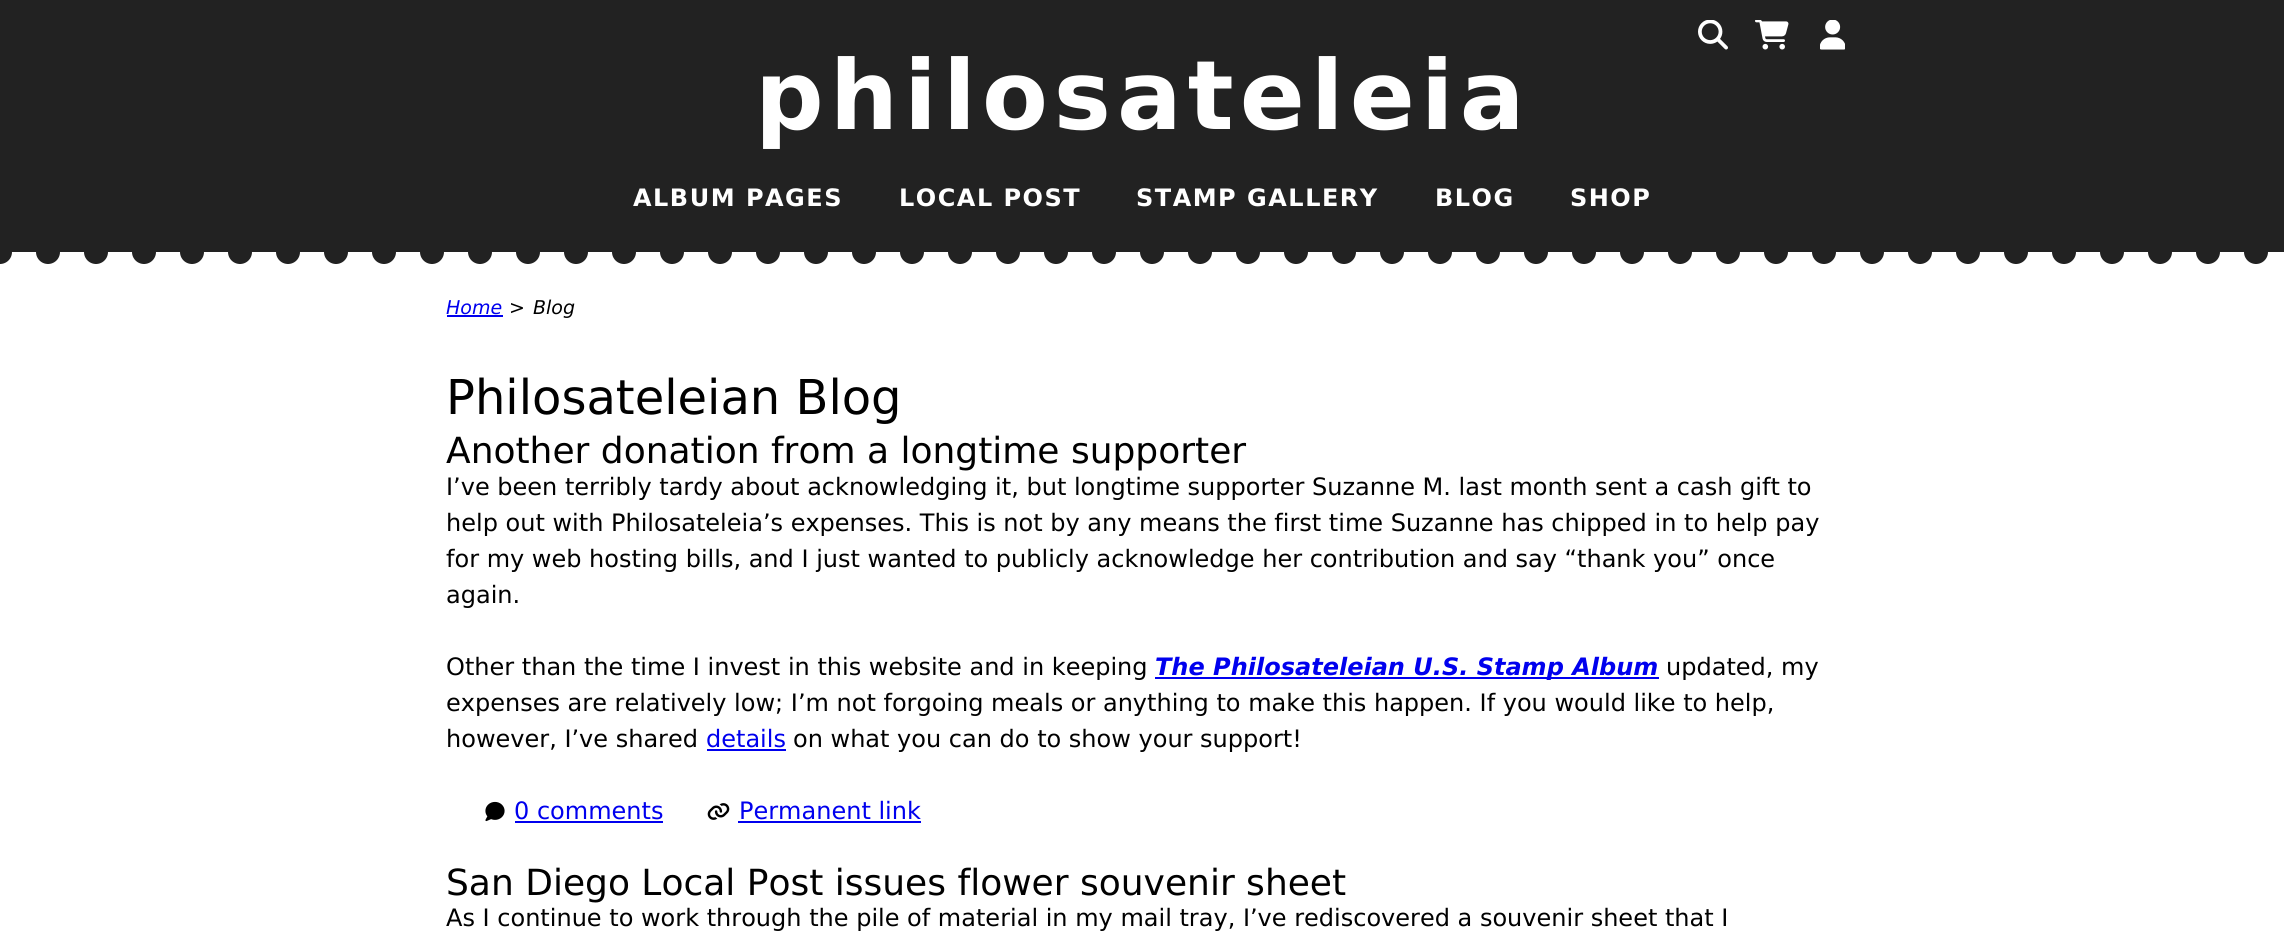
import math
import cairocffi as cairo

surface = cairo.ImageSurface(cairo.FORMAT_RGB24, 2284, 947)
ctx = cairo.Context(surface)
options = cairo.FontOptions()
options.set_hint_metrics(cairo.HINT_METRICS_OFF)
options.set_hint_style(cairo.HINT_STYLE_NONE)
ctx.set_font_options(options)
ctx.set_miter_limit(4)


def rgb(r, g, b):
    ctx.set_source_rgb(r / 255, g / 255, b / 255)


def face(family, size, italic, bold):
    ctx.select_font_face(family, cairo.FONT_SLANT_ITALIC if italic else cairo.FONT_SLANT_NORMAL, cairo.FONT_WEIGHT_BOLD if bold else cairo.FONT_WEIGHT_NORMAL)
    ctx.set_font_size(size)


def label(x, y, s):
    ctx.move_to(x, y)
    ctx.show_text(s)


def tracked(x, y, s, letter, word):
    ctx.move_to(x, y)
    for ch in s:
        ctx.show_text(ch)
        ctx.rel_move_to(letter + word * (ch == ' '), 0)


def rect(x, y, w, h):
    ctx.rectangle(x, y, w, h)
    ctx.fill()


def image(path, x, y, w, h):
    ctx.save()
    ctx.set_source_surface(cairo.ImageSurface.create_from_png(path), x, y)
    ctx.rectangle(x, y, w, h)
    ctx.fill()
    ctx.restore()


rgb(255, 255, 255)
ctx.paint()
ctx.new_path()
ctx.move_to(0, 252)
ctx.line_to(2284.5, 252)
rgb(34, 34, 34)
ctx.set_line_width(24)
ctx.set_line_cap(cairo.LINE_CAP_ROUND)
ctx.set_dash([0, 48])
ctx.stroke()
rect(0, 0, 2284, 252)
image('image0.png', 1698, 20, 30, 30)
image('image1.png', 1755, 20, 34, 30)
image('image2.png', 1820, 20, 25, 30)
face('DejaVu Sans', 96, 0, 1)
rgb(255, 255, 255)
tracked(755, 129, 'philosateleia', 6, 0)
face('DejaVu Sans', 24, 0, 1)
tracked(633, 206, 'ALBUM PAGES', 1.5, 0)
tracked(899, 206, 'LOCAL POST', 1.5, 0)
tracked(1136, 206, 'STAMP GALLERY', 1.5, 0)
tracked(1435, 206, 'BLOG', 1.5, 0)
tracked(1570, 206, 'SHOP', 1.5, 0)
face('DejaVu Sans', 19, 1, 0)
rgb(0, 0, 238)
label(446, 314, 'Home')
rect(447, 315, 56, 2)
rgb(0, 0, 0)
label(509, 314, '>')
label(533, 314, 'Blog')
face('DejaVu Sans', 48, 0, 0)
label(446, 414, 'Philosateleian Blog')
face('DejaVu Sans', 36, 0, 0)
label(446, 463, 'Another donation from a longtime supporter')
face('DejaVu Sans', 24, 0, 0)
label(446, 495, 'I’ve been terribly tardy about acknowledging it, but longtime supporter Suzanne M. last month sent a cash gift to')
label(446, 531, 'help out with Philosateleia’s expenses. This is not by any means the first time Suzanne has chipped in to help pay')
label(446, 567, 'for my web hosting bills, and I just wanted to publicly acknowledge her contribution and say “thank you” once')
label(446, 603, 'again.')
label(446, 675, 'Other than the time I invest in this website and in keeping')
rgb(0, 0, 238)
rect(1155, 677, 504, 2)
face('DejaVu Sans', 24, 1, 1)
label(1155, 675, 'The Philosateleian U.S. Stamp Album')
face('DejaVu Sans', 24, 0, 0)
rgb(0, 0, 0)
label(1666, 675, 'updated, my')
label(446, 711, 'expenses are relatively low; I’m not forgoing meals or anything to make this happen. If you would like to help,')
label(446, 747, 'however, I’ve shared')
rgb(0, 0, 238)
label(706, 747, 'details')
rect(707, 749, 79, 2)
rgb(0, 0, 0)
label(793, 747, 'on what you can do to show your support!')
image('image3.png', 485, 801, 20, 21)
rgb(0, 0, 238)
label(514, 819, '0 comments')
rect(515, 821, 148, 2)
image('image4.png', 707, 803, 23, 17)
label(739, 819, 'Permanent link')
rect(738, 821, 183, 2)
face('DejaVu Sans', 36, 0, 0)
rgb(0, 0, 0)
label(446, 895, 'San Diego Local Post issues flower souvenir sheet')
face('DejaVu Sans', 24, 0, 0)
label(446, 926, 'As I continue to work through the pile of material in my mail tray, I’ve rediscovered a souvenir sheet that I')
surface.write_to_png('render.png')
